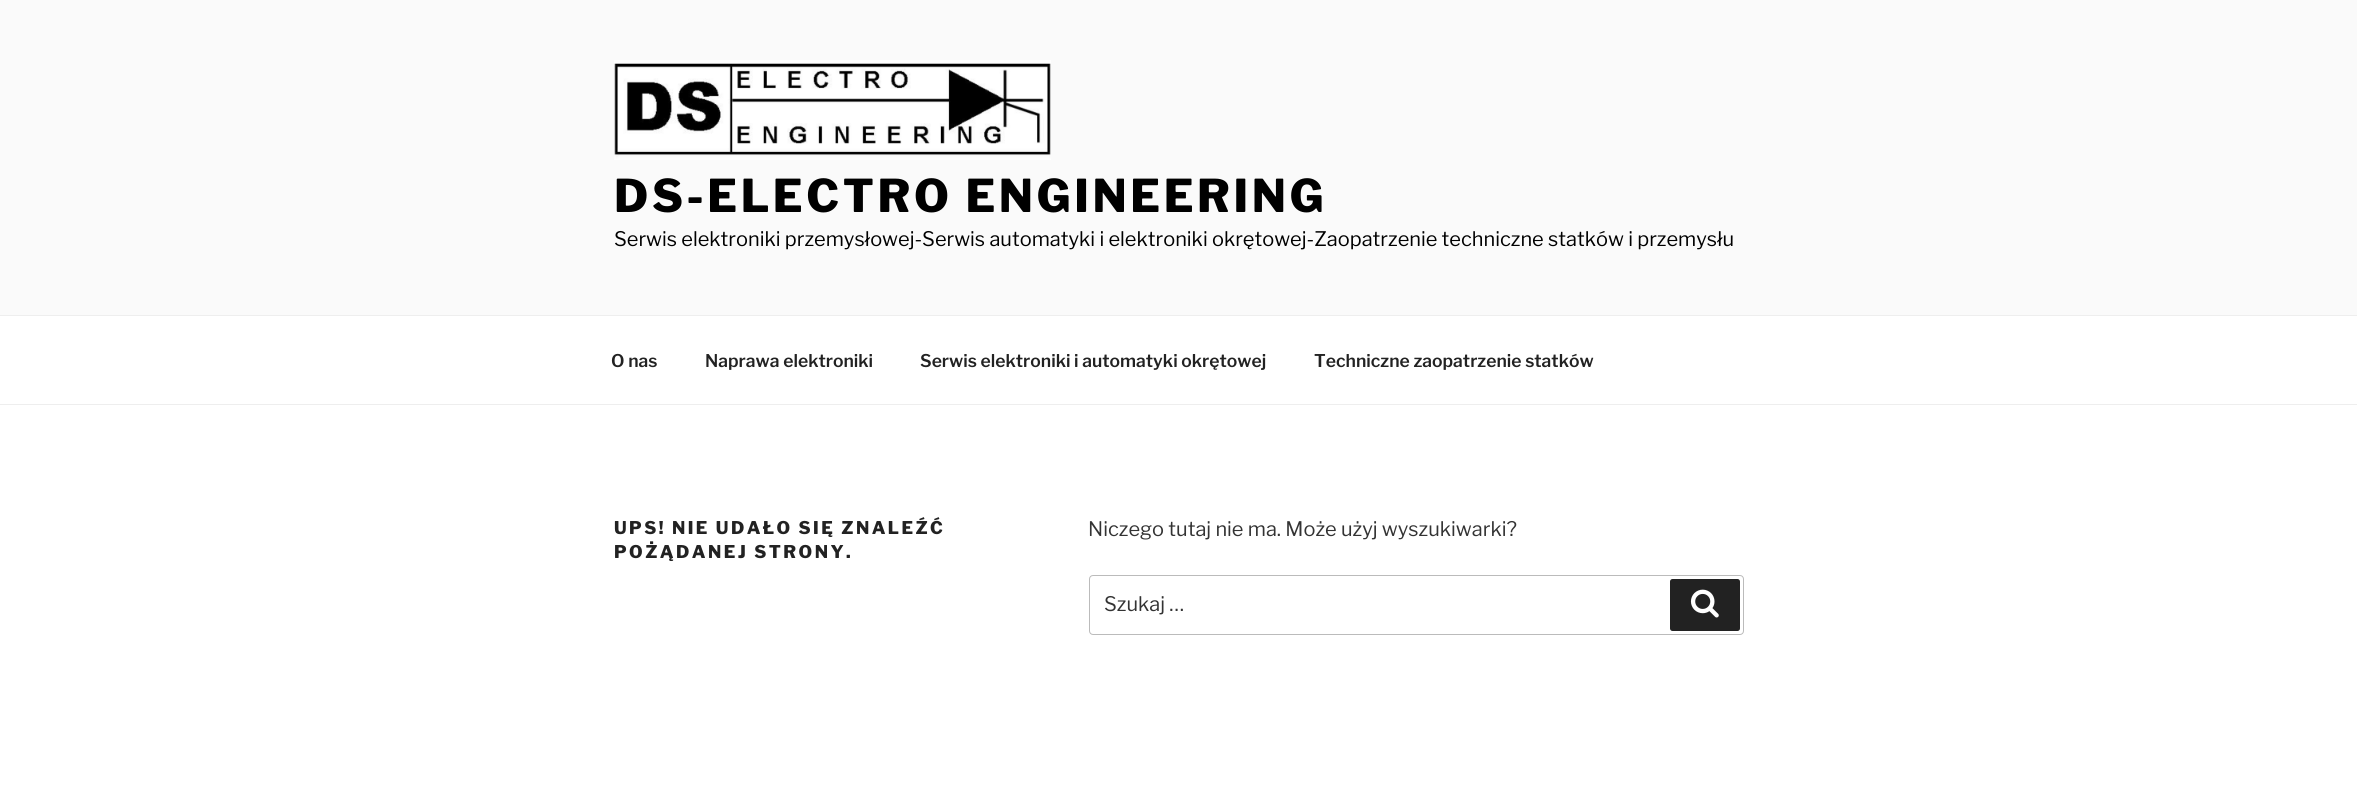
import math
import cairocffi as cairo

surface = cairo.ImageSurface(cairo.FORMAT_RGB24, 2357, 794)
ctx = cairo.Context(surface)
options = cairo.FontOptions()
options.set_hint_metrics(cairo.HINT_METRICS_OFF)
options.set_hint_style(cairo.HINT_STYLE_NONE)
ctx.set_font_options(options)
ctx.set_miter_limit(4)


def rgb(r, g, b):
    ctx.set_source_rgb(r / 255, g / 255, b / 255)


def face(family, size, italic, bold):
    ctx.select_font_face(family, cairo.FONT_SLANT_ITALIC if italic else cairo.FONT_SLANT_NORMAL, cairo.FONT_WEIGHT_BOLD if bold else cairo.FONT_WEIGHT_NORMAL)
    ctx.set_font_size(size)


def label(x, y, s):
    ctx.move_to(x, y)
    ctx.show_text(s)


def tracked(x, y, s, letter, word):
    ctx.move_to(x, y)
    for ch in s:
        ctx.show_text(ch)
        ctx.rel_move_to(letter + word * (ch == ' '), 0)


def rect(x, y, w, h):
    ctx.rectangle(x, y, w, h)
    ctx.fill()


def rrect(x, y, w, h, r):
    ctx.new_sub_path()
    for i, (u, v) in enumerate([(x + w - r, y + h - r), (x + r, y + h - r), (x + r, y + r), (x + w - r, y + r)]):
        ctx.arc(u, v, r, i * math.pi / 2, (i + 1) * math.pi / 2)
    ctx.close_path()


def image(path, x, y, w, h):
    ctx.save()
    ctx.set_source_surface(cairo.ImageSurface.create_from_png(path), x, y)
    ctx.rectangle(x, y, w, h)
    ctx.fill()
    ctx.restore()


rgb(255, 255, 255)
ctx.paint()
rgb(250, 250, 250)
rect(0, 0, 2357, 315)
image('image0.png', 614, 60, 437, 100)
face('Libre Franklin Thin', 45, 0, 0)
rgb(0, 0, 0)
tracked(614, 212, 'DS-ELECTRO ENGINEERING', 3.6, 0)
face('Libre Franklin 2 Thin', 20, 0, 0)
label(614, 246, 'Serwis elektroniki przemysłowej-Serwis automatyki i elektroniki okrętowej-Zaopatrzenie techniczne statków i przemysłu')
rgb(238, 238, 238)
rect(0, 315, 2357, 1)
rect(0, 404, 2357, 1)
face('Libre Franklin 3 Thin', 17.5, 0, 0)
rgb(34, 34, 34)
label(611, 367, 'O nas')
label(705, 367, 'Naprawa elektroniki')
label(920, 367, 'Serwis elektroniki i automatyki okrętowej')
label(1314, 367, 'Techniczne zaopatrzenie statków')
face('Libre Franklin Thin', 17.5, 0, 0)
tracked(614, 534, 'UPS! NIE UDAŁO SIĘ ZNALEŹĆ', 2.45, 0)
tracked(614, 558, 'POŻĄDANEJ STRONY.', 2.45, 0)
face('Libre Franklin 2 Thin', 20, 0, 0)
rgb(51, 51, 51)
label(1088, 536, 'Niczego tutaj nie ma. Może użyj wyszukiwarki?')
rrect(1089.5, 575.5, 654, 59, 3.5)
rgb(187, 187, 187)
ctx.set_line_width(1)
ctx.stroke()
rgb(51, 51, 51)
label(1104, 611, 'Szukaj …')
rgb(34, 34, 34)
rrect(1670, 579, 70, 52, 2.5)
ctx.fill()
image('image1.png', 1690, 589, 29, 29)
surface.write_to_png('render.png')
